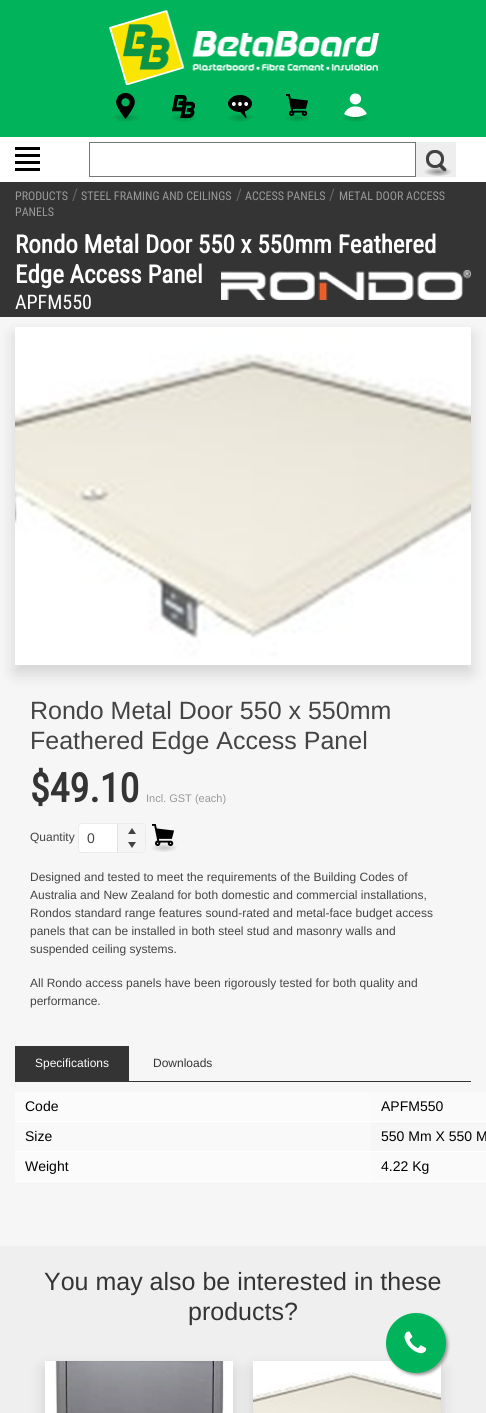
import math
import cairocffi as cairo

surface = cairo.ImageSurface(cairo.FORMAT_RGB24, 486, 1413)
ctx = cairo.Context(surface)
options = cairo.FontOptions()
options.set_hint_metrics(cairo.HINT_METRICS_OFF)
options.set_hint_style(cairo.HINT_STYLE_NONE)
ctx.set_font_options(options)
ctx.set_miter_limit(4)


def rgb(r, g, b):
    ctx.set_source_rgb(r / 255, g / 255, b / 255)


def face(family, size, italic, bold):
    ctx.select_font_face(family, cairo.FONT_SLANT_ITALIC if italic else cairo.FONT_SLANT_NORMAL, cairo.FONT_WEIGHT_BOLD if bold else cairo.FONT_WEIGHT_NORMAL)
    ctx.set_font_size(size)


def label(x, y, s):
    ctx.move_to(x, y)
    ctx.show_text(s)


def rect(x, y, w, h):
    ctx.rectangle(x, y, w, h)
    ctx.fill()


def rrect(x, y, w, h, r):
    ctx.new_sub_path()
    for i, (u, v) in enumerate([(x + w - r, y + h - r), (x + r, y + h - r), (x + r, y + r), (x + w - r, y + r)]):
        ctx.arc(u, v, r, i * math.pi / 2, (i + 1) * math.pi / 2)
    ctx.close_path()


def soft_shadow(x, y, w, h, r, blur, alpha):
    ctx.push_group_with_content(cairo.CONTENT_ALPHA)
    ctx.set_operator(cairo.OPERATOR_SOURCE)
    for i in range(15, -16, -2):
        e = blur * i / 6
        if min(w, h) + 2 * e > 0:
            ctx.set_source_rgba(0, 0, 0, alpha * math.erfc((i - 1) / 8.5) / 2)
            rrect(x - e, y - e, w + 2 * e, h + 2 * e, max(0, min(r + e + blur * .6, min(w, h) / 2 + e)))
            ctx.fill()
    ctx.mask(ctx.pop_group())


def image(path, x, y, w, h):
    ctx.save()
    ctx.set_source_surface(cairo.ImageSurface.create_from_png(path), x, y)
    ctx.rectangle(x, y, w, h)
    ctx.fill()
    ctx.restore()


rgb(1, 180, 91)
ctx.paint()
image('image0.png', 109, 10, 271, 75)
image('image1.png', 113, 93, 26, 29)
image('image2.png', 171, 95, 26, 27)
image('image3.png', 228, 95, 26, 27)
image('image4.png', 285, 94, 26, 28)
image('image5.png', 343, 93, 26, 29)
rgb(255, 255, 255)
rect(0, 137, 486, 45)
image('image6.png', 15, 147, 25, 24)
ctx.rectangle(89.5, 142.5, 326, 34)
rgb(118, 118, 118)
ctx.set_line_width(1)
ctx.stroke()
rgb(238, 238, 238)
rect(416, 142, 40, 35)
image('image7.png', 424, 150, 28, 26)
rgb(52, 52, 52)
rect(0, 182, 486, 135)
face('Roboto Condensed', 12, 0, 0)
rgb(153, 153, 153)
label(15, 200, 'PRODUCTS')
face('Roboto Condensed', 16, 0, 0)
rgb(102, 102, 102)
label(72, 200, '/')
face('Roboto Condensed', 12, 0, 0)
rgb(153, 153, 153)
label(81, 200, 'STEEL FRAMING AND CEILINGS')
face('Roboto Condensed', 16, 0, 0)
rgb(102, 102, 102)
label(236, 200, '/')
face('Roboto Condensed', 12, 0, 0)
rgb(153, 153, 153)
label(245, 200, 'ACCESS PANELS')
face('Roboto Condensed', 16, 0, 0)
rgb(102, 102, 102)
label(329, 200, '/')
face('Roboto Condensed', 12, 0, 0)
rgb(153, 153, 153)
label(339, 200, 'METAL DOOR ACCESS')
label(15, 216, 'PANELS')
face('Roboto Condensed', 25, 0, 1)
rgb(255, 255, 255)
label(15, 253, 'Rondo Metal Door 550 x 550mm Feathered')
label(15, 283, 'Edge Access Panel')
image('image8.png', 221, 270, 250, 30)
face('Roboto Condensed', 20, 0, 0)
label(15, 309, 'APFM550')
rgb(246, 246, 246)
rect(0, 317, 486, 929)
rgb(0, 0, 0)
soft_shadow(15, 335, 456, 338, 0, 8, 0.15)
image('image9.png', 15, 327, 456, 338)
face('Liberation Sans', 25, 0, 0)
rgb(68, 68, 68)
label(30, 719, 'Rondo Metal Door 550 x 550mm')
label(30, 749, 'Feathered Edge Access Panel')
face('Roboto Condensed', 40, 0, 1)
rgb(52, 52, 52)
label(30, 802, '$49.10')
face('Liberation Sans', 11, 0, 0)
rgb(153, 153, 153)
label(146, 802, 'Incl. GST (each)')
face('Liberation Sans', 12, 0, 0)
rgb(68, 68, 68)
label(30, 841, 'Quantity')
rgb(255, 255, 255)
rrect(78, 823, 68, 30, 4)
ctx.fill()
rrect(78.5, 823.5, 67, 29, 3.5)
ctx.set_source_rgba(0, 0, 0, 0.08)
ctx.stroke()
face('Liberation Sans', 14, 0, 0)
rgb(68, 68, 68)
label(87, 843, '0')
rgb(245, 245, 245)
ctx.new_path()
ctx.move_to(117, 824)
ctx.line_to(142, 824)
ctx.curve_to(143.5, 824, 145, 825.5, 145, 827)
ctx.line_to(145, 838)
ctx.line_to(117, 838)
ctx.close_path()
ctx.fill()
rgb(225, 225, 225)
rect(117, 824, 1, 14)
rgb(66, 66, 66)
ctx.new_path()
ctx.move_to(132, 828)
ctx.line_to(136, 834)
ctx.line_to(128, 834)
ctx.close_path()
ctx.fill()
rgb(245, 245, 245)
ctx.new_path()
ctx.move_to(117, 838)
ctx.line_to(145, 838)
ctx.line_to(145, 849)
ctx.curve_to(145, 850.5, 143.5, 852, 142, 852)
ctx.line_to(117, 852)
ctx.close_path()
ctx.fill()
rgb(225, 225, 225)
rect(117, 838, 1, 14)
rgb(66, 66, 66)
ctx.new_path()
ctx.move_to(132, 848)
ctx.line_to(128, 842)
ctx.line_to(136, 842)
ctx.close_path()
ctx.fill()
image('image10.png', 151, 824, 26, 28)
face('Liberation Sans', 12, 0, 0)
rgb(68, 68, 68)
label(30, 881, 'Designed and tested to meet the requirements of the Building Codes of')
label(30, 899, 'Australia and New Zealand for both domestic and commercial installations,')
label(30, 917, 'Rondos standard range features sound-rated and metal-face budget access')
label(30, 935, 'panels that can be installed in both steel stud and masonry walls and')
label(30, 953, 'suspended ceiling systems.')
label(30, 987, 'All Rondo access panels have been rigorously tested for both quality and')
label(30, 1005, 'performance.')
rgb(52, 52, 52)
rect(15, 1081, 456, 1)
rect(15, 1046, 114, 35)
rgb(255, 255, 255)
label(35, 1067, 'Specifications')
rgb(52, 52, 52)
label(153, 1067, 'Downloads')
rgb(255, 255, 255)
rect(15, 1121, 471, 1)
rgb(251, 251, 251)
rect(15, 1092, 356, 29)
face('Liberation Sans', 14, 0, 0)
rgb(0, 0, 0)
label(25, 1111, 'Code')
rgb(250, 250, 250)
rect(371, 1092, 115, 29)
rgb(0, 0, 0)
label(381, 1111, 'APFM550')
rgb(255, 255, 255)
rect(15, 1151, 471, 1)
rgb(249, 249, 249)
rect(15, 1122, 356, 29)
rgb(0, 0, 0)
label(25, 1141, 'Size')
label(381, 1141, '550 Mm X 550 M')
rgb(255, 255, 255)
rect(15, 1181, 471, 1)
rgb(251, 251, 251)
rect(15, 1152, 356, 29)
rgb(0, 0, 0)
label(25, 1171, 'Weight')
rgb(250, 250, 250)
rect(371, 1152, 115, 29)
rgb(0, 0, 0)
label(381, 1171, '4.22 Kg')
rgb(239, 239, 239)
rect(0, 1246, 486, 167)
face('Liberation Sans', 25, 0, 0)
rgb(52, 52, 52)
label(44, 1290, 'You may also be interested in these')
label(188, 1320, 'products?')
rgb(0, 0, 0)
soft_shadow(45, 1369, 188, 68, 0, 8, 0.15)
image('image11.png', 45, 1361, 188, 52)
soft_shadow(253, 1369, 188, 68, 0, 8, 0.15)
image('image12.png', 253, 1361, 188, 52)
rgb(153, 153, 153)
soft_shadow(388, 1315, 60, 60, 30, 1.5, 1)
rgb(1, 180, 91)
ctx.arc(416, 1343, 30, 0, 2 * math.pi)
ctx.fill()
image('image13.png', 404, 1331, 23, 23)
surface.write_to_png('render.png')
